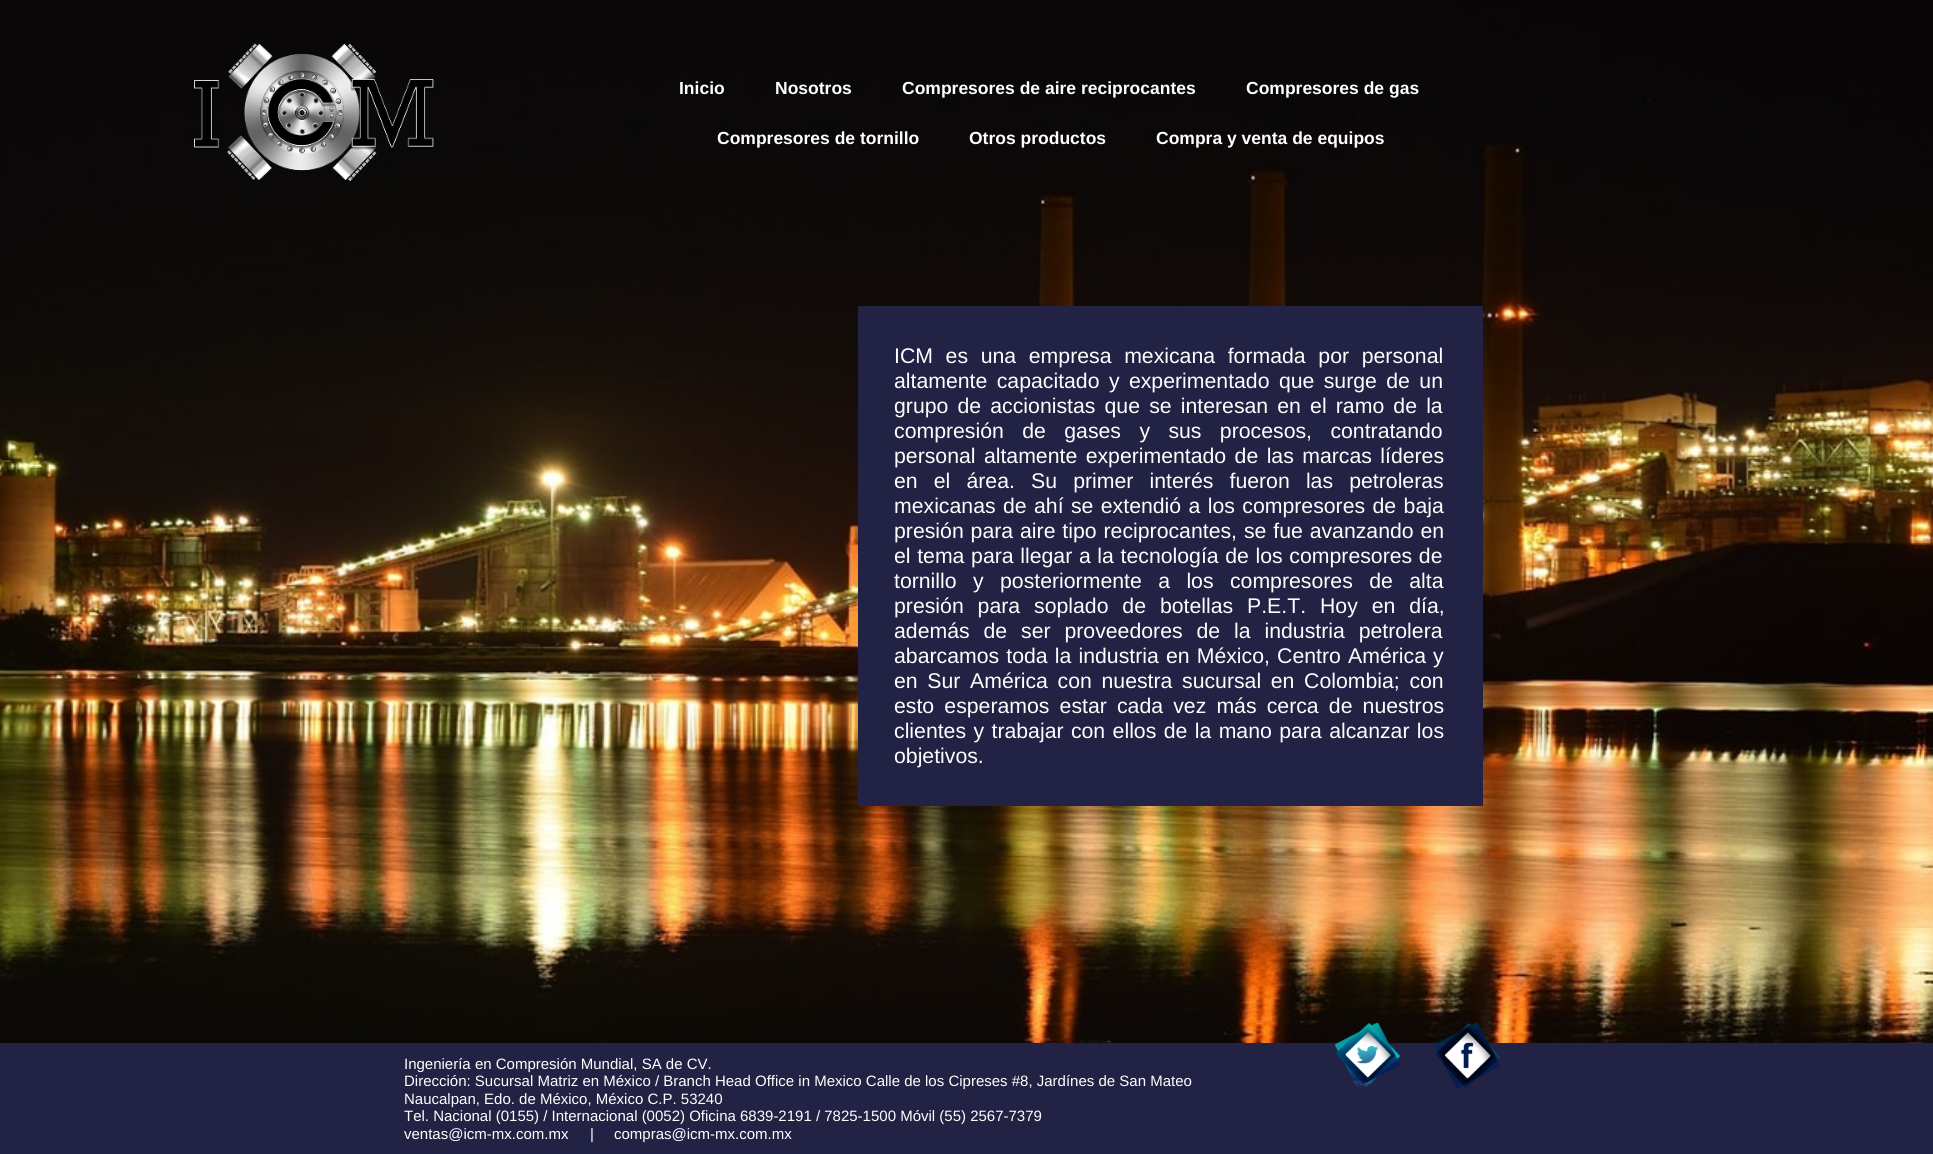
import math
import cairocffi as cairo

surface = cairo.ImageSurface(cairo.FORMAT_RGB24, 1933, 1154)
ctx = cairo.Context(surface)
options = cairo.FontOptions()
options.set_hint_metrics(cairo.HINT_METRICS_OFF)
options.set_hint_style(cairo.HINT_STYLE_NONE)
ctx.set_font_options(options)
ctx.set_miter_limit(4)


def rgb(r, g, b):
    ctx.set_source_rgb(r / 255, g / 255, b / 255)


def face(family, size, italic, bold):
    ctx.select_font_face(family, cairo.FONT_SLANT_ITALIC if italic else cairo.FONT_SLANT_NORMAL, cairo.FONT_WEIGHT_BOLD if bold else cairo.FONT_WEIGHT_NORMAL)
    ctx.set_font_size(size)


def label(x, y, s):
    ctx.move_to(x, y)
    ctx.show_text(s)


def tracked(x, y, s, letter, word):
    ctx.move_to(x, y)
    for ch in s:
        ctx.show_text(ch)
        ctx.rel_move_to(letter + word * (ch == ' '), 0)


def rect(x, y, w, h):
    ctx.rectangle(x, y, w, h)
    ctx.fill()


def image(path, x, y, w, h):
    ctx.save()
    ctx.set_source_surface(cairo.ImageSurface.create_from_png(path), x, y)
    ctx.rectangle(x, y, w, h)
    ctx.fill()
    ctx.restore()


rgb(255, 255, 255)
ctx.paint()
image('image0.png', 0, 0, 1933, 1043)
image('image1.png', 194, 43, 240, 138)
face('Liberation Sans', 17.5, 0, 1)
rgb(255, 255, 255)
label(679, 94, 'Inicio')
label(775, 94, 'Nosotros')
label(902, 94, 'Compresores de aire reciprocantes')
label(1246, 94, 'Compresores de gas')
label(717, 144, 'Compresores de tornillo')
label(969, 144, 'Otros productos')
label(1156, 144, 'Compra y venta de equipos')
rgb(34, 34, 68)
rect(858, 306, 625, 500)
face('Liberation Sans', 21.25, 0, 0)
rgb(255, 255, 255)
tracked(894, 363, 'ICM es una empresa mexicana formada por personal', 0, 6.75)
tracked(894, 388, 'altamente capacitado y experimentado que surge de un', 0, 3.5)
tracked(894, 413, 'grupo de accionistas que se interesan en el ramo de la', 0, 3.25)
tracked(894, 438, 'compresión de gases y sus procesos, contratando', 0, 12.5)
tracked(894, 463, 'personal altamente experimentado de las marcas líderes', 0, 2.5)
tracked(894, 488, 'en el área. Su primer interés fueron las petroleras', 0, 10.25)
tracked(894, 513, 'mexicanas de ahí se extendió a los compresores de baja', 0, 1.5)
tracked(894, 538, 'presión para aire tipo reciprocantes, se fue avanzando en', 0, 1)
tracked(894, 563, 'el tema para llegar a la tecnología de los compresores de', 0, 0.75)
tracked(894, 588, 'tornillo y posteriormente a los compresores de alta', 0, 10.5)
tracked(894, 613, 'presión para soplado de botellas P.E.T. Hoy en día,', 0, 8)
tracked(894, 638, 'además de ser proveedores de la industria petrolera', 0, 8)
tracked(894, 663, 'abarcamos toda la industria en México, Centro América y', 0, 1.25)
tracked(894, 688, 'en Sur América con nuestra sucursal en Colombia; con', 0, 3.75)
tracked(894, 713, 'esto esperamos estar cada vez más cerca de nuestros', 0, 4.25)
tracked(894, 738, 'clientes y trabajar con ellos de la mano para alcanzar los', 0, 1.5)
label(894, 763, 'objetivos.')
rgb(34, 34, 68)
rect(0, 1043, 1933, 111)
face('Liberation Sans', 15, 0, 0)
rgb(255, 255, 255)
label(404, 1069, 'Ingeniería en Compresión Mundial, SA de CV.')
label(404, 1086, 'Dirección: Sucursal Matriz en México / Branch Head Office in Mexico Calle de los Cipreses #8, Jardínes de San Mateo')
label(404, 1104, 'Naucalpan, Edo. de México, México C.P. 53240')
label(404, 1121, 'Tel. Nacional (0155) / Internacional (0052) Oficina 6839-2191 / 7825-1500 Móvil (55) 2567-7379')
label(404, 1139, 'ventas@icm-mx.com.mx')
label(590, 1139, '|')
label(614, 1139, 'compras@icm-mx.com.mx')
image('image2.png', 1335, 1022, 65, 65)
image('image3.png', 1434, 1022, 66, 66)
surface.write_to_png('render.png')
